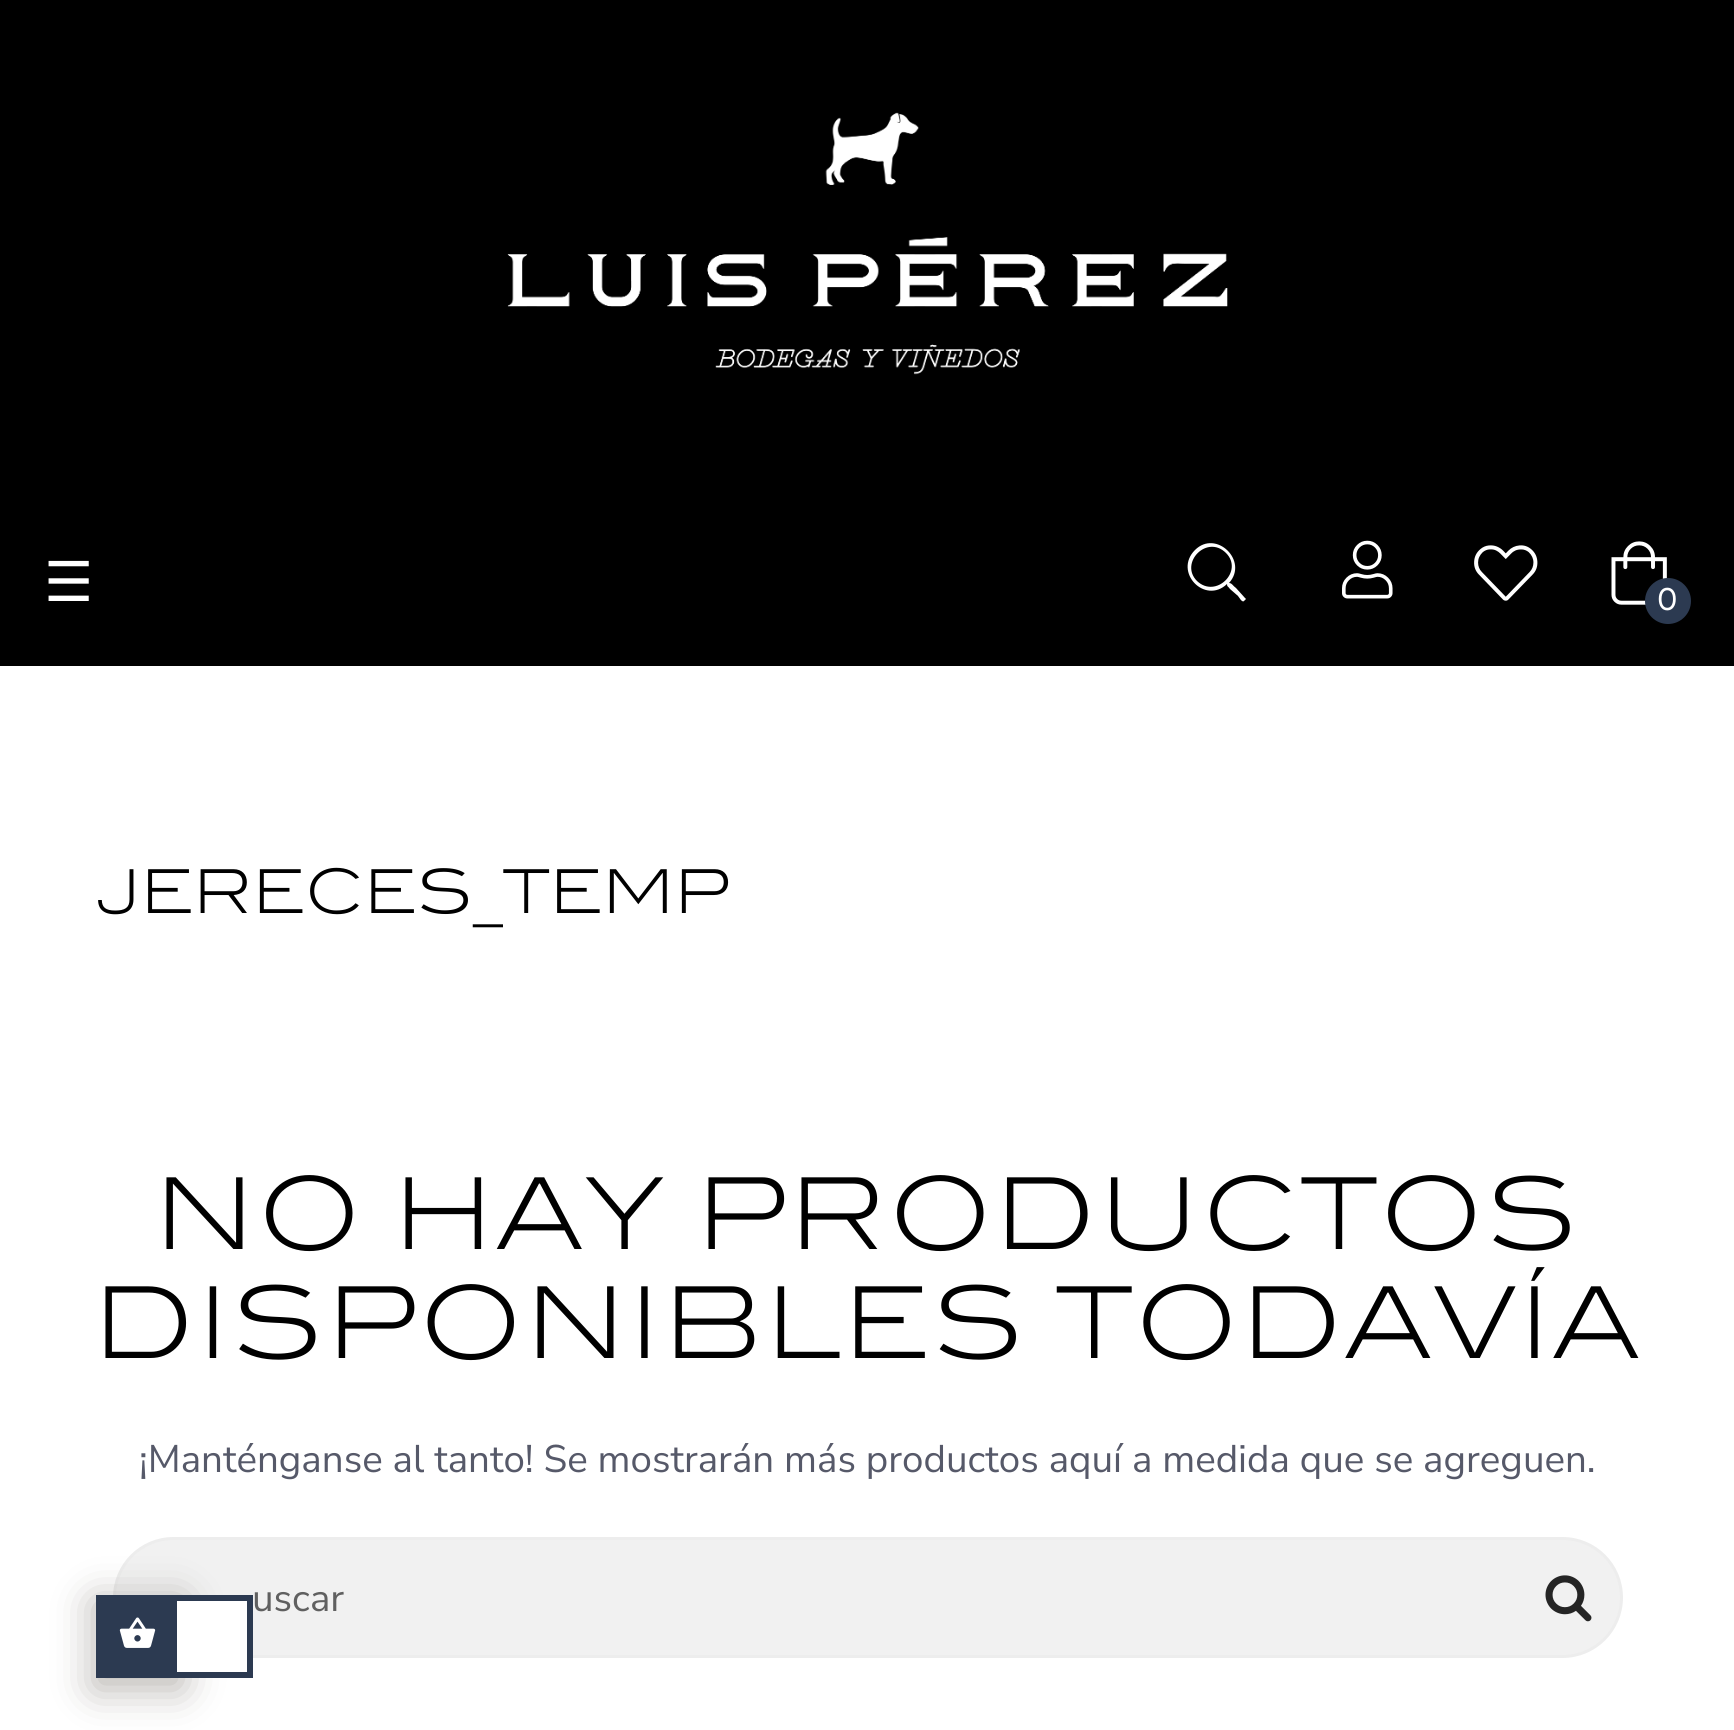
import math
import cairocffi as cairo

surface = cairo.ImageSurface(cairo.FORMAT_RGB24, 1734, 1730)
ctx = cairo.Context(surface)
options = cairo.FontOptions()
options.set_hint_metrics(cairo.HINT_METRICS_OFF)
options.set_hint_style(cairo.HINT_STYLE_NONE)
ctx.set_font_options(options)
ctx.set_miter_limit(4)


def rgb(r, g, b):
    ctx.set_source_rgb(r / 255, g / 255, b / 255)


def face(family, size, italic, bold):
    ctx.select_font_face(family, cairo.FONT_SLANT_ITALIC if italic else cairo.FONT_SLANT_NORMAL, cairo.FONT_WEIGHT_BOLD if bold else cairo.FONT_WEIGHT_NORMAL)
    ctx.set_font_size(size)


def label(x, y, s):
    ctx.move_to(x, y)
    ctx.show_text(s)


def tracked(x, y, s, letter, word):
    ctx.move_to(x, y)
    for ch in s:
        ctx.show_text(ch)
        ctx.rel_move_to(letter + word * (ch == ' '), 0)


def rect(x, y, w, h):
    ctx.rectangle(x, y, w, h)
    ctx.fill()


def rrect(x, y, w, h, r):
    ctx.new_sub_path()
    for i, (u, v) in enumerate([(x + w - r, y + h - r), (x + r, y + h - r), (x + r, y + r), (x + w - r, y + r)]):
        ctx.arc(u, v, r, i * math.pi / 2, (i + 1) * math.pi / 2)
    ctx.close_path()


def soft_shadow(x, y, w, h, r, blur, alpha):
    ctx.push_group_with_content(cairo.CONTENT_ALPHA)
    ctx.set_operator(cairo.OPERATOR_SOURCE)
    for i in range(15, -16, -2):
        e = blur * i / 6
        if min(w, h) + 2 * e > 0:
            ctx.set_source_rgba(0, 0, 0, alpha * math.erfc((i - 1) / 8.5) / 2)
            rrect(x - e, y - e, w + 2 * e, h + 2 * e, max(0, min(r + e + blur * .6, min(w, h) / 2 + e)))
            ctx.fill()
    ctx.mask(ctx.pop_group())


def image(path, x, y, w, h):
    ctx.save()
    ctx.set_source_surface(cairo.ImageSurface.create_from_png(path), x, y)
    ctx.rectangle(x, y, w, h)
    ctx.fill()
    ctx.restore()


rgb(255, 255, 255)
ctx.paint()
rgb(0, 0, 0)
rect(0, 0, 1734, 666)
image('image0.png', 507, 112, 721, 263)
face('DejaVu Sans', 55, 0, 0)
rgb(255, 255, 255)
label(44, 601, '☰')
ctx.new_path()
ctx.move_to(1245, 598)
ctx.line_to(1246, 599)
ctx.line_to(1244, 601)
ctx.curve_to(1242, 603, 1239, 597, 1238, 596)
ctx.line_to(1230, 589)
ctx.curve_to(1228, 586, 1227, 587, 1227, 584)
ctx.curve_to(1205, 605, 1173, 572, 1195, 550)
ctx.curve_to(1216, 529, 1249, 561, 1229, 583)
ctx.curve_to(1232, 583, 1233, 586, 1236, 588)
ctx.close_path()
ctx.move_to(1197, 581)
ctx.curve_to(1216, 599, 1244, 571, 1226, 553)
ctx.curve_to(1207, 534, 1179, 563, 1197, 581)
ctx.close_path()
ctx.fill()
image('image1.png', 1342, 540, 51, 59)
image('image2.png', 1474, 545, 64, 56)
image('image3.png', 1611, 541, 56, 64)
rgb(44, 58, 81)
ctx.arc(1668, 601, 23, 0, 2 * math.pi)
ctx.fill()
face('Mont', 33, 0, 0)
rgb(255, 255, 255)
label(1657, 610, '0')
face('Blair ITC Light', 60.5, 0, 0)
rgb(0, 0, 0)
label(96, 913, 'JERECES_TEMP')
face('Blair ITC Light', 99, 0, 0)
tracked(154, 1249, 'NO HAY PRODUCTOS', 2.75, 0)
tracked(93, 1358, 'DISPONIBLES TODAVÍA', 2.75, 0)
face('Nunito Sans', 38.5, 0, 0)
rgb(86, 89, 105)
label(139, 1472, '¡Manténganse al tanto! Se mostrarán más productos aquí a medida que se agreguen.')
rgb(241, 241, 241)
rrect(114.5, 1538.5, 1507, 118, 59)
ctx.fill_preserve()
rgb(237, 237, 237)
ctx.set_line_width(3)
ctx.stroke()
rgb(96, 96, 96)
label(252, 1611, 'uscar')
image('image4.png', 1545, 1575, 47, 47)
rgb(142, 137, 130)
soft_shadow(94, 1601, 88, 88, 0, 20.5, 0.62)
rgb(44, 58, 81)
rect(96, 1595, 75, 83)
image('image5.png', 119, 1617, 37, 31)
rgb(255, 255, 255)
ctx.rectangle(174, 1598, 76, 77)
ctx.fill_preserve()
rgb(44, 58, 81)
ctx.set_line_width(6)
ctx.stroke()
surface.write_to_png('render.png')
